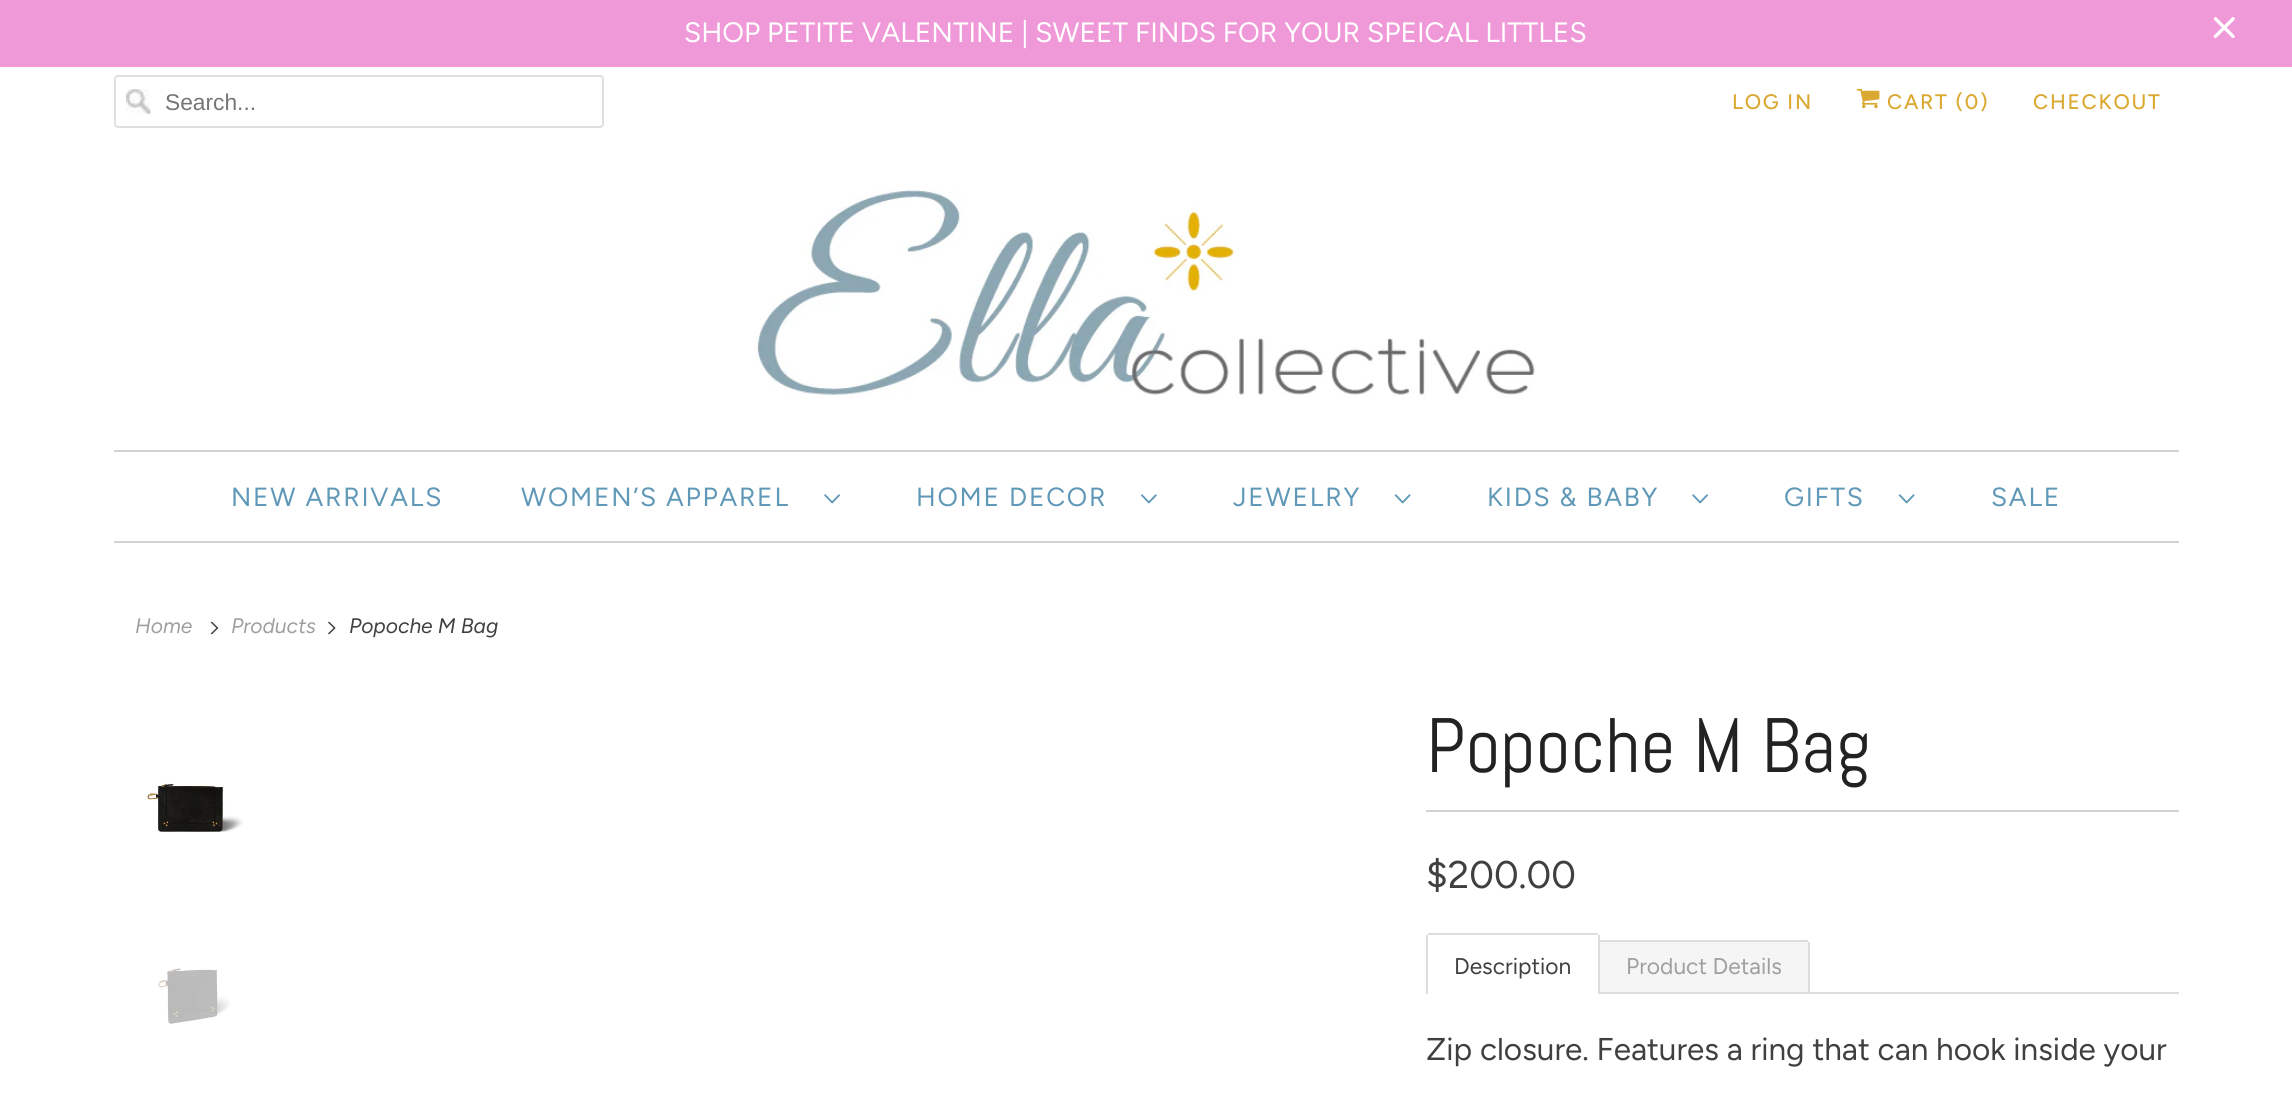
import math
import cairocffi as cairo

surface = cairo.ImageSurface(cairo.FORMAT_RGB24, 2292, 1104)
ctx = cairo.Context(surface)
options = cairo.FontOptions()
options.set_hint_metrics(cairo.HINT_METRICS_OFF)
options.set_hint_style(cairo.HINT_STYLE_NONE)
ctx.set_font_options(options)
ctx.set_miter_limit(4)


def rgb(r, g, b):
    ctx.set_source_rgb(r / 255, g / 255, b / 255)


def face(family, size, italic, bold):
    ctx.select_font_face(family, cairo.FONT_SLANT_ITALIC if italic else cairo.FONT_SLANT_NORMAL, cairo.FONT_WEIGHT_BOLD if bold else cairo.FONT_WEIGHT_NORMAL)
    ctx.set_font_size(size)


def label(x, y, s):
    ctx.move_to(x, y)
    ctx.show_text(s)


def tracked(x, y, s, letter, word):
    ctx.move_to(x, y)
    for ch in s:
        ctx.show_text(ch)
        ctx.rel_move_to(letter + word * (ch == ' '), 0)


def rect(x, y, w, h):
    ctx.rectangle(x, y, w, h)
    ctx.fill()


def rrect(x, y, w, h, r):
    ctx.new_sub_path()
    for i, (u, v) in enumerate([(x + w - r, y + h - r), (x + r, y + h - r), (x + r, y + r), (x + w - r, y + r)]):
        ctx.arc(u, v, r, i * math.pi / 2, (i + 1) * math.pi / 2)
    ctx.close_path()


def image(path, x, y, w, h):
    ctx.save()
    ctx.set_source_surface(cairo.ImageSurface.create_from_png(path), x, y)
    ctx.rectangle(x, y, w, h)
    ctx.fill()
    ctx.restore()


rgb(255, 255, 255)
ctx.paint()
rgb(240, 153, 217)
rect(0, 0, 2292, 67)
face('Figtree', 28, 0, 0)
rgb(255, 255, 255)
label(684, 42, 'SHOP PETITE VALENTINE | SWEET FINDS FOR YOUR SPEICAL LITTLES')
image('image0.png', 2213, 17, 22, 21)
image('image1.png', 126, 89, 25, 25)
rrect(115, 76, 488, 51, 3)
rgb(223, 223, 223)
ctx.stroke()
face('Liberation Sans', 22.75, 0, 0)
rgb(117, 117, 117)
label(165, 110, 'Search...')
face('Figtree Medium', 21, 0, 0)
rgb(219, 169, 50)
tracked(1732, 109, 'LOG IN', 1.75, 0)
image('image2.png', 1856, 88, 24, 21)
tracked(1887, 109, 'CART (0)', 1.75, 0)
tracked(2033, 109, 'CHECKOUT', 1.75, 0)
image('image3.png', 755, 189, 780, 210)
rgb(211, 211, 211)
rect(114, 450, 2065, 2)
rect(114, 541, 2065, 2)
face('Figtree', 26.25, 0, 0)
rgb(96, 152, 183)
tracked(231, 506, 'NEW ARRIVALS', 1.75, 0)
tracked(521, 506, 'WOMEN’S APPAREL', 1.75, 0)
image('image4.png', 824, 494, 16, 10)
tracked(916, 506, 'HOME DECOR', 1.75, 0)
image('image5.png', 1141, 494, 16, 10)
tracked(1233, 506, 'JEWELRY', 1.75, 0)
image('image6.png', 1394, 494, 17, 10)
tracked(1487, 506, 'KIDS & BABY', 1.75, 0)
image('image4.png', 1692, 494, 16, 10)
tracked(1784, 506, 'GIFTS', 1.75, 0)
image('image6.png', 1898, 494, 17, 10)
tracked(1991, 506, 'SALE', 1.75, 0)
face('Figtree', 21, 1, 0)
rgb(159, 159, 159)
label(135, 633, 'Home')
image('image7.png', 210, 621, 9, 14)
label(231, 633, 'Products')
image('image8.png', 328, 621, 8, 14)
rgb(64, 64, 64)
label(349, 633, 'Popoche M Bag')
image('image9.png', 147, 783, 96, 49)
image('image10.png', 158, 968, 72, 56)
rgb(211, 211, 211)
rect(1426, 810, 753, 2)
face('Abel', 77, 0, 0)
rgb(34, 34, 34)
label(1426, 772, 'Popoche M Bag')
face('Figtree', 38.5, 0, 0)
rgb(64, 64, 64)
label(1426, 888, '$200.00')
rgb(221, 221, 221)
rect(1600, 992, 579, 2)
rect(1428, 933, 170, 2)
rect(1598, 940, 210, 2)
rect(1598, 935, 2, 59)
rect(1426, 935, 2, 59)
face('Figtree', 22.75, 0, 0)
rgb(64, 64, 64)
label(1454, 974, 'Description')
rgb(245, 245, 245)
ctx.new_path()
ctx.move_to(1600, 942)
ctx.line_to(1806, 942)
ctx.curve_to(1807, 942, 1808, 943, 1808, 944)
ctx.line_to(1808, 992)
ctx.line_to(1600, 992)
ctx.close_path()
ctx.fill()
rgb(221, 221, 221)
rect(1808, 942, 2, 50)
rgb(159, 159, 159)
label(1626, 974, 'Product Details')
face('Figtree', 31.5, 0, 0)
rgb(64, 64, 64)
label(1426, 1060, 'Zip closure. Features a ring that can hook inside your')
surface.write_to_png('render.png')
